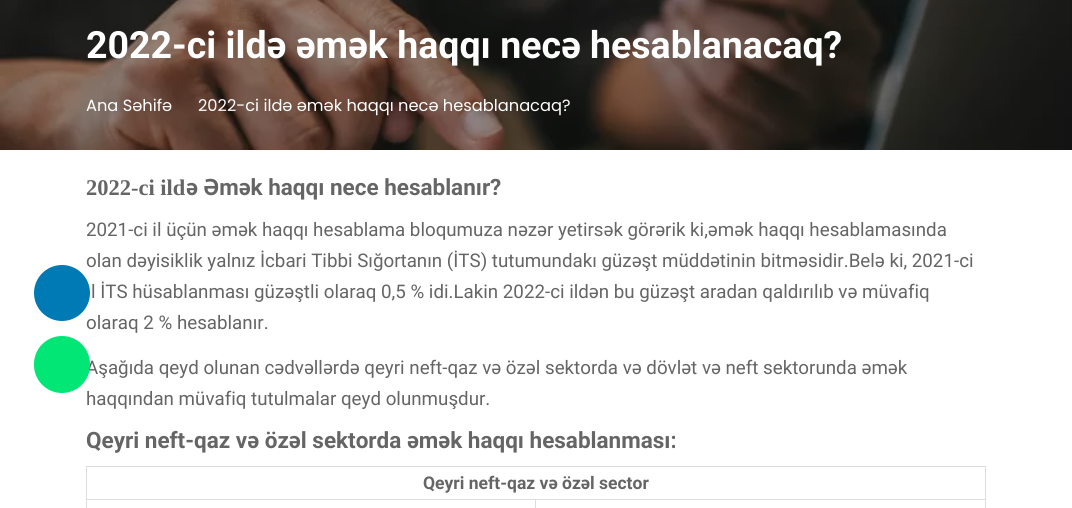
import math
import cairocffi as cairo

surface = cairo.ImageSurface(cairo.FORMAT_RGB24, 1072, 508)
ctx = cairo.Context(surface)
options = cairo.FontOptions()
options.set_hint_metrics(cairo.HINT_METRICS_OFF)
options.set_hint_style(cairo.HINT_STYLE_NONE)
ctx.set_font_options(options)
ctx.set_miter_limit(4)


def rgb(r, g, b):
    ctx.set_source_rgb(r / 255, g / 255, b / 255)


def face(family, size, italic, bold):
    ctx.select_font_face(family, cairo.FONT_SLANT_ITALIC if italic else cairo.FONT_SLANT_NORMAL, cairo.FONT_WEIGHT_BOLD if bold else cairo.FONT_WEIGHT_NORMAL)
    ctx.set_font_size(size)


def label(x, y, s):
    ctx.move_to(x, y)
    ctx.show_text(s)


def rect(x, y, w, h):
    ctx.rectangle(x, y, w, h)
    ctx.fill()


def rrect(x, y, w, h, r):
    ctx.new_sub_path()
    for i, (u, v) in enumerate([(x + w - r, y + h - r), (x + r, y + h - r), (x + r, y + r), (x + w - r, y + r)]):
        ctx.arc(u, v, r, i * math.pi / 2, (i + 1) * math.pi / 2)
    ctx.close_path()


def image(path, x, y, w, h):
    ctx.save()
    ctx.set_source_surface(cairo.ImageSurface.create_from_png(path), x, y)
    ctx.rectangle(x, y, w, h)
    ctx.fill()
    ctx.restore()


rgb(255, 255, 255)
ctx.paint()
image('image0.png', 0, 0, 1072, 150)
face('Roboto', 37.5, 0, 1)
rgb(255, 255, 255)
label(86, 58, '2022-ci ildə əmək haqqı necə hesablanacaq?')
face('Poppins', 16.25, 0, 0)
label(86, 111, 'Ana Səhifə')
label(198, 111, '2022-ci ildə əmək haqqı necə hesablanacaq?')
face('Roboto', 18.75, 0, 0)
rgb(101, 101, 101)
label(86, 267, 'olan dəyisiklik yalnız İcbari Tibbi Sığortanın (İTS) tutumundakı güzəşt müddətinin bitməsidir.Belə ki, 2021-ci')
label(86, 329, 'olaraq 2 % hesablanır.')
rgb(0, 122, 181)
ctx.new_path()
ctx.arc(62, 293, 28, 0, 2 * math.pi)
ctx.fill()
face('Liberation Serif', 22.5, 0, 1)
rgb(101, 101, 101)
label(86, 195, '2022-ci ild')
face('Roboto', 22.5, 0, 1)
label(186, 195, 'ə Əmək haqqı nece hesablanır?')
face('Roboto', 18.75, 0, 0)
label(86, 236, '2021-ci il üçün əmək haqqı hesablama bloqumuza nəzər yetirsək görərik ki,əmək haqqı hesablamasında')
label(91, 298, 'l İTS hüsablanması güzəştli olaraq 0,5 % idi.Lakin 2022-ci ildən bu güzəşt aradan qaldırılıb və müvafiq')
label(86, 374, 'Aşağıda qeyd olunan cədvəllərdə qeyri neft-qaz və özəl sektorda və dövlət və neft sektorunda əmək')
label(86, 405, 'haqqından müvafiq tutulmalar qeyd olunmuşdur.')
face('Roboto', 22.5, 0, 1)
label(86, 448, 'Qeyri neft-qaz və özəl sektorda əmək haqqı hesablanması:')
rgb(221, 221, 221)
rect(86, 466, 900, 1)
rect(535, 499, 451, 1)
rect(985, 499, 1, 9)
rect(985, 466, 1, 34)
rect(535, 499, 1, 9)
rect(86, 499, 450, 1)
rect(86, 499, 1, 9)
rect(86, 466, 1, 34)
face('Roboto', 17.5, 0, 1)
rgb(101, 101, 101)
label(423, 489, 'Qeyri neft-qaz və özəl sector')
rgb(1, 230, 117)
rrect(34, 336, 56, 57, 28)
ctx.fill()
surface.write_to_png('render.png')
